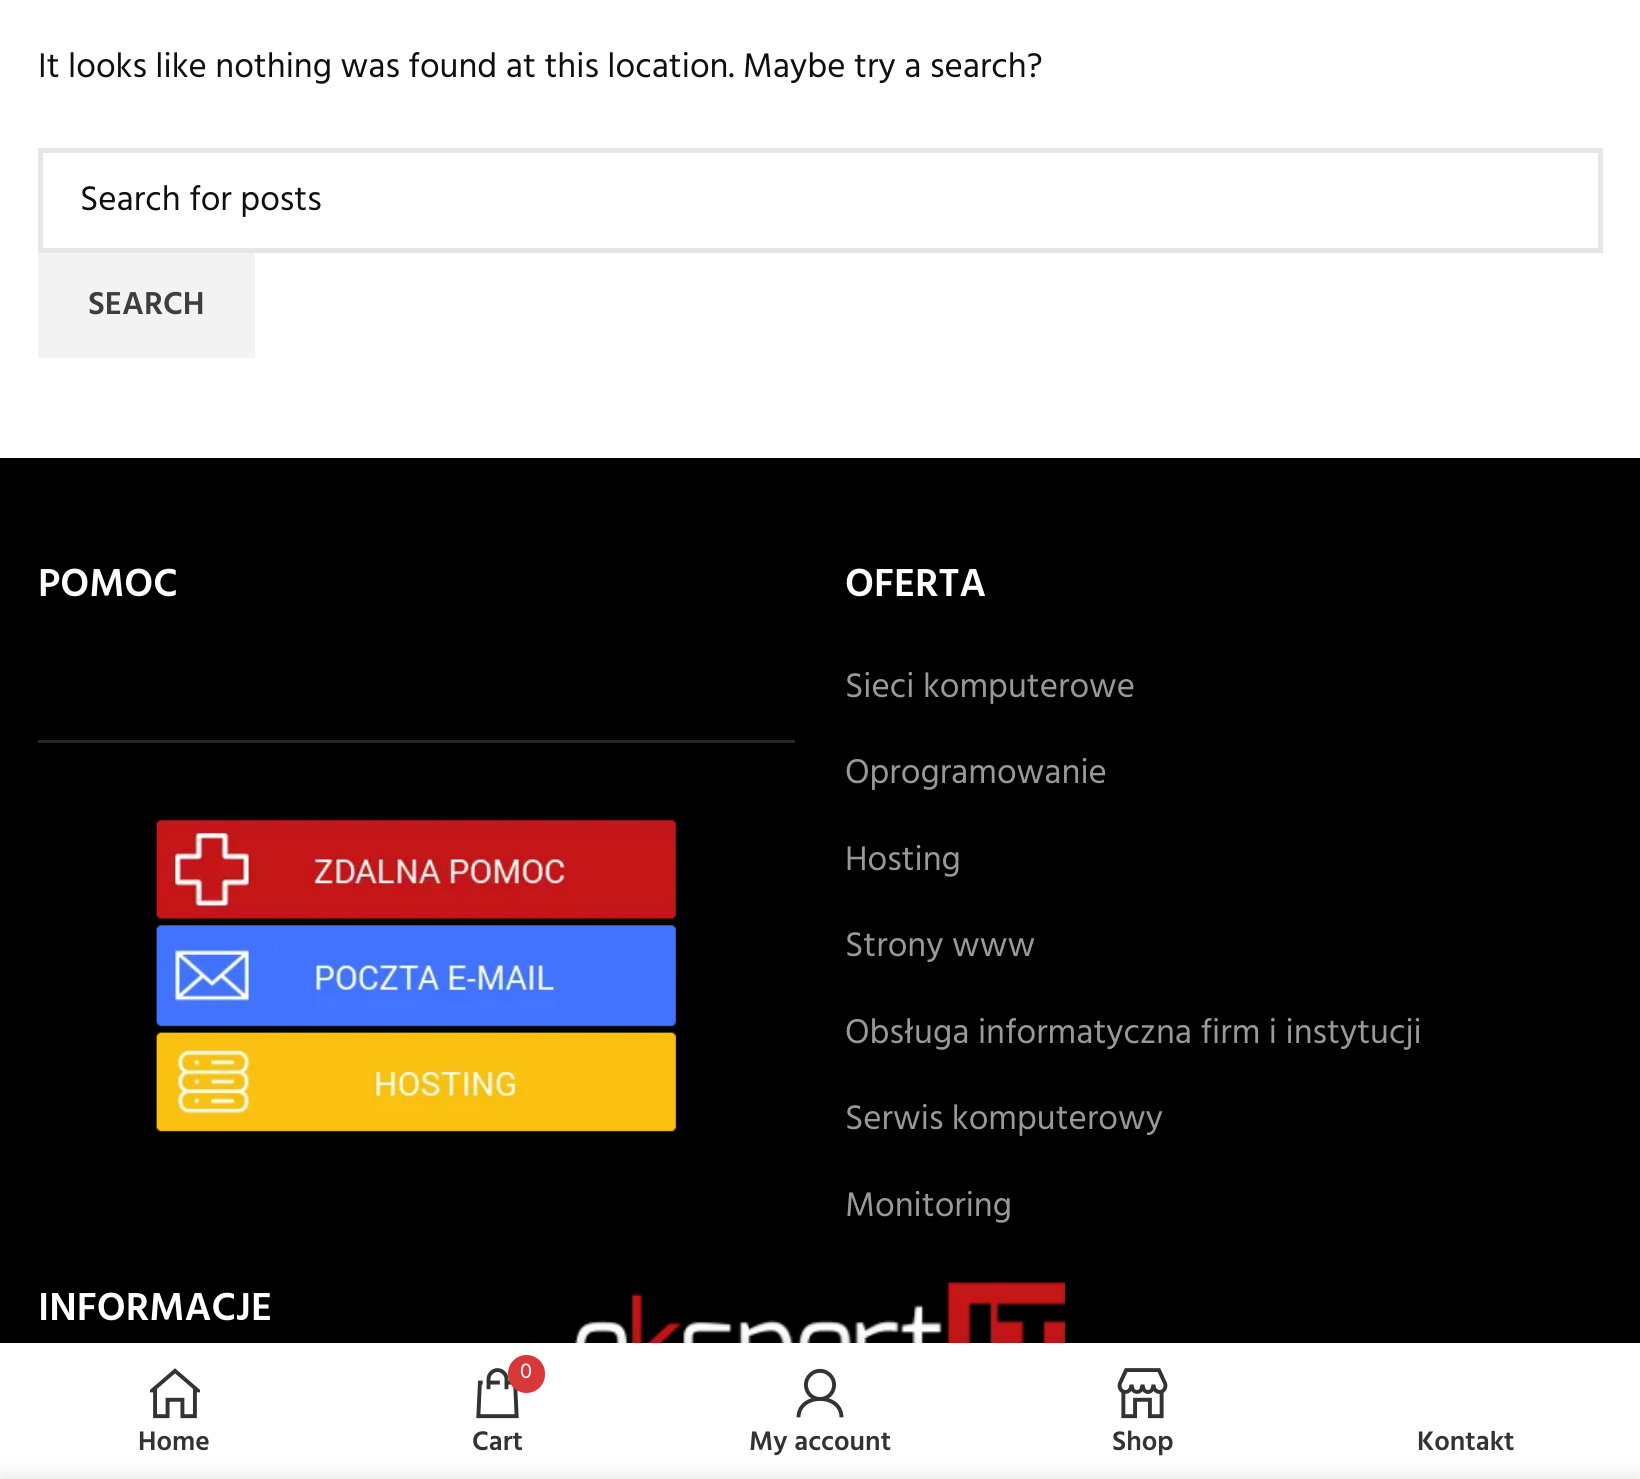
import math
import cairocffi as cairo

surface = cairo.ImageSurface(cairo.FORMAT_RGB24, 1640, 1479)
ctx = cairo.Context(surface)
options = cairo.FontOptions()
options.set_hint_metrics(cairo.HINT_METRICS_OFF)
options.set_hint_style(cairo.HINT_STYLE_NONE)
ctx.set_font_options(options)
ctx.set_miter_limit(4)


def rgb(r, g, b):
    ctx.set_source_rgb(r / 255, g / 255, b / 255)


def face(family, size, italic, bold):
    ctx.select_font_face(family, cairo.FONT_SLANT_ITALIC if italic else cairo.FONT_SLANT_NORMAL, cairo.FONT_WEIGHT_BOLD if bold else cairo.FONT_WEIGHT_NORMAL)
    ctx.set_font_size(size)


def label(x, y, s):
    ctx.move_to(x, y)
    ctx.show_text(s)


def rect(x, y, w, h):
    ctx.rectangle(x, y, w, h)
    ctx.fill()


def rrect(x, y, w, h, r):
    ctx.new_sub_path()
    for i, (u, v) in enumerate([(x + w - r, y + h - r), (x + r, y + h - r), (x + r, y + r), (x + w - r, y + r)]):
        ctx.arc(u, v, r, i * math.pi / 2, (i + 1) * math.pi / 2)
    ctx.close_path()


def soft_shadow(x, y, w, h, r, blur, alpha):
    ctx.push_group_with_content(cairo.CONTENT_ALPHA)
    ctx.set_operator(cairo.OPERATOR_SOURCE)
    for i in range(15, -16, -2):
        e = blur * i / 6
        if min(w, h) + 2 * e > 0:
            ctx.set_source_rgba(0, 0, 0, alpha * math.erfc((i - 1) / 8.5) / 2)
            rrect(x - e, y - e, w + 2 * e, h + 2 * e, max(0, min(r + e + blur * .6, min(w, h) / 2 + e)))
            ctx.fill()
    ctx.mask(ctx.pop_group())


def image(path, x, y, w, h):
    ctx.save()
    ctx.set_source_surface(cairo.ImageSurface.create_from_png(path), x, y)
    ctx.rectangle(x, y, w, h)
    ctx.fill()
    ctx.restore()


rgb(255, 255, 255)
ctx.paint()
face('Hind', 35, 0, 0)
rgb(15, 15, 15)
label(38, 77, 'It looks like nothing was found at this location. Maybe try a search?')
ctx.rectangle(40.5, 150.5, 1560, 100)
rgb(230, 230, 230)
ctx.set_line_width(5)
ctx.stroke()
rgb(15, 15, 15)
label(80, 210, 'Search for posts')
rgb(243, 243, 243)
rect(38, 253, 217, 105)
face('Hind SemiBold', 32.5, 0, 0)
rgb(62, 62, 62)
label(88, 314, 'SEARCH')
rgb(0, 0, 0)
rect(0, 458, 1640, 885)
rgb(38, 38, 38)
rect(38, 740, 757, 3)
face('Hind SemiBold', 40, 0, 0)
rgb(255, 255, 255)
label(38, 596, 'POMOC')
image('image0.png', 156, 820, 521, 99)
image('image1.png', 156, 925, 521, 102)
image('image2.png', 156, 1032, 521, 100)
label(845, 596, 'OFERTA')
face('Hind', 35, 0, 0)
rgb(153, 153, 153)
label(845, 697, 'Sieci komputerowe')
label(845, 783, 'Oprogramowanie')
label(845, 870, 'Hosting')
label(845, 956, 'Strony www')
label(845, 1043, 'Obsługa informatyczna firm i instytucji')
label(845, 1129, 'Serwis komputerowy')
label(845, 1216, 'Monitoring')
face('Hind SemiBold', 40, 0, 0)
rgb(255, 255, 255)
label(38, 1320, 'INFORMACJE')
image('image3.png', 575, 1282, 490, 61)
rgb(0, 0, 0)
soft_shadow(0, 1343, 1640, 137, 0, 11, 0.12)
rgb(255, 255, 255)
rect(0, 1343, 1640, 136)
image('image4.png', 150, 1368, 50, 51)
face('Hind SemiBold', 27.5, 0, 0)
rgb(51, 51, 51)
label(138, 1450, 'Home')
image('image5.png', 476, 1368, 43, 51)
rgb(216, 56, 56)
rrect(508, 1355, 37, 38, 18.5)
ctx.fill()
face('Hind', 22, 0, 0)
rgb(255, 255, 255)
label(520, 1378, '0')
face('Hind SemiBold', 27.5, 0, 0)
rgb(51, 51, 51)
label(472, 1450, 'Cart')
image('image6.png', 796, 1368, 48, 50)
label(749, 1450, 'My account')
image('image7.png', 1117, 1368, 51, 51)
label(1112, 1450, 'Shop')
label(1417, 1450, 'Kontakt')
rgb(0, 0, 0)
soft_shadow(0, 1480, 1640, 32, 0, 11, 0.14)
surface.write_to_png('render.png')
